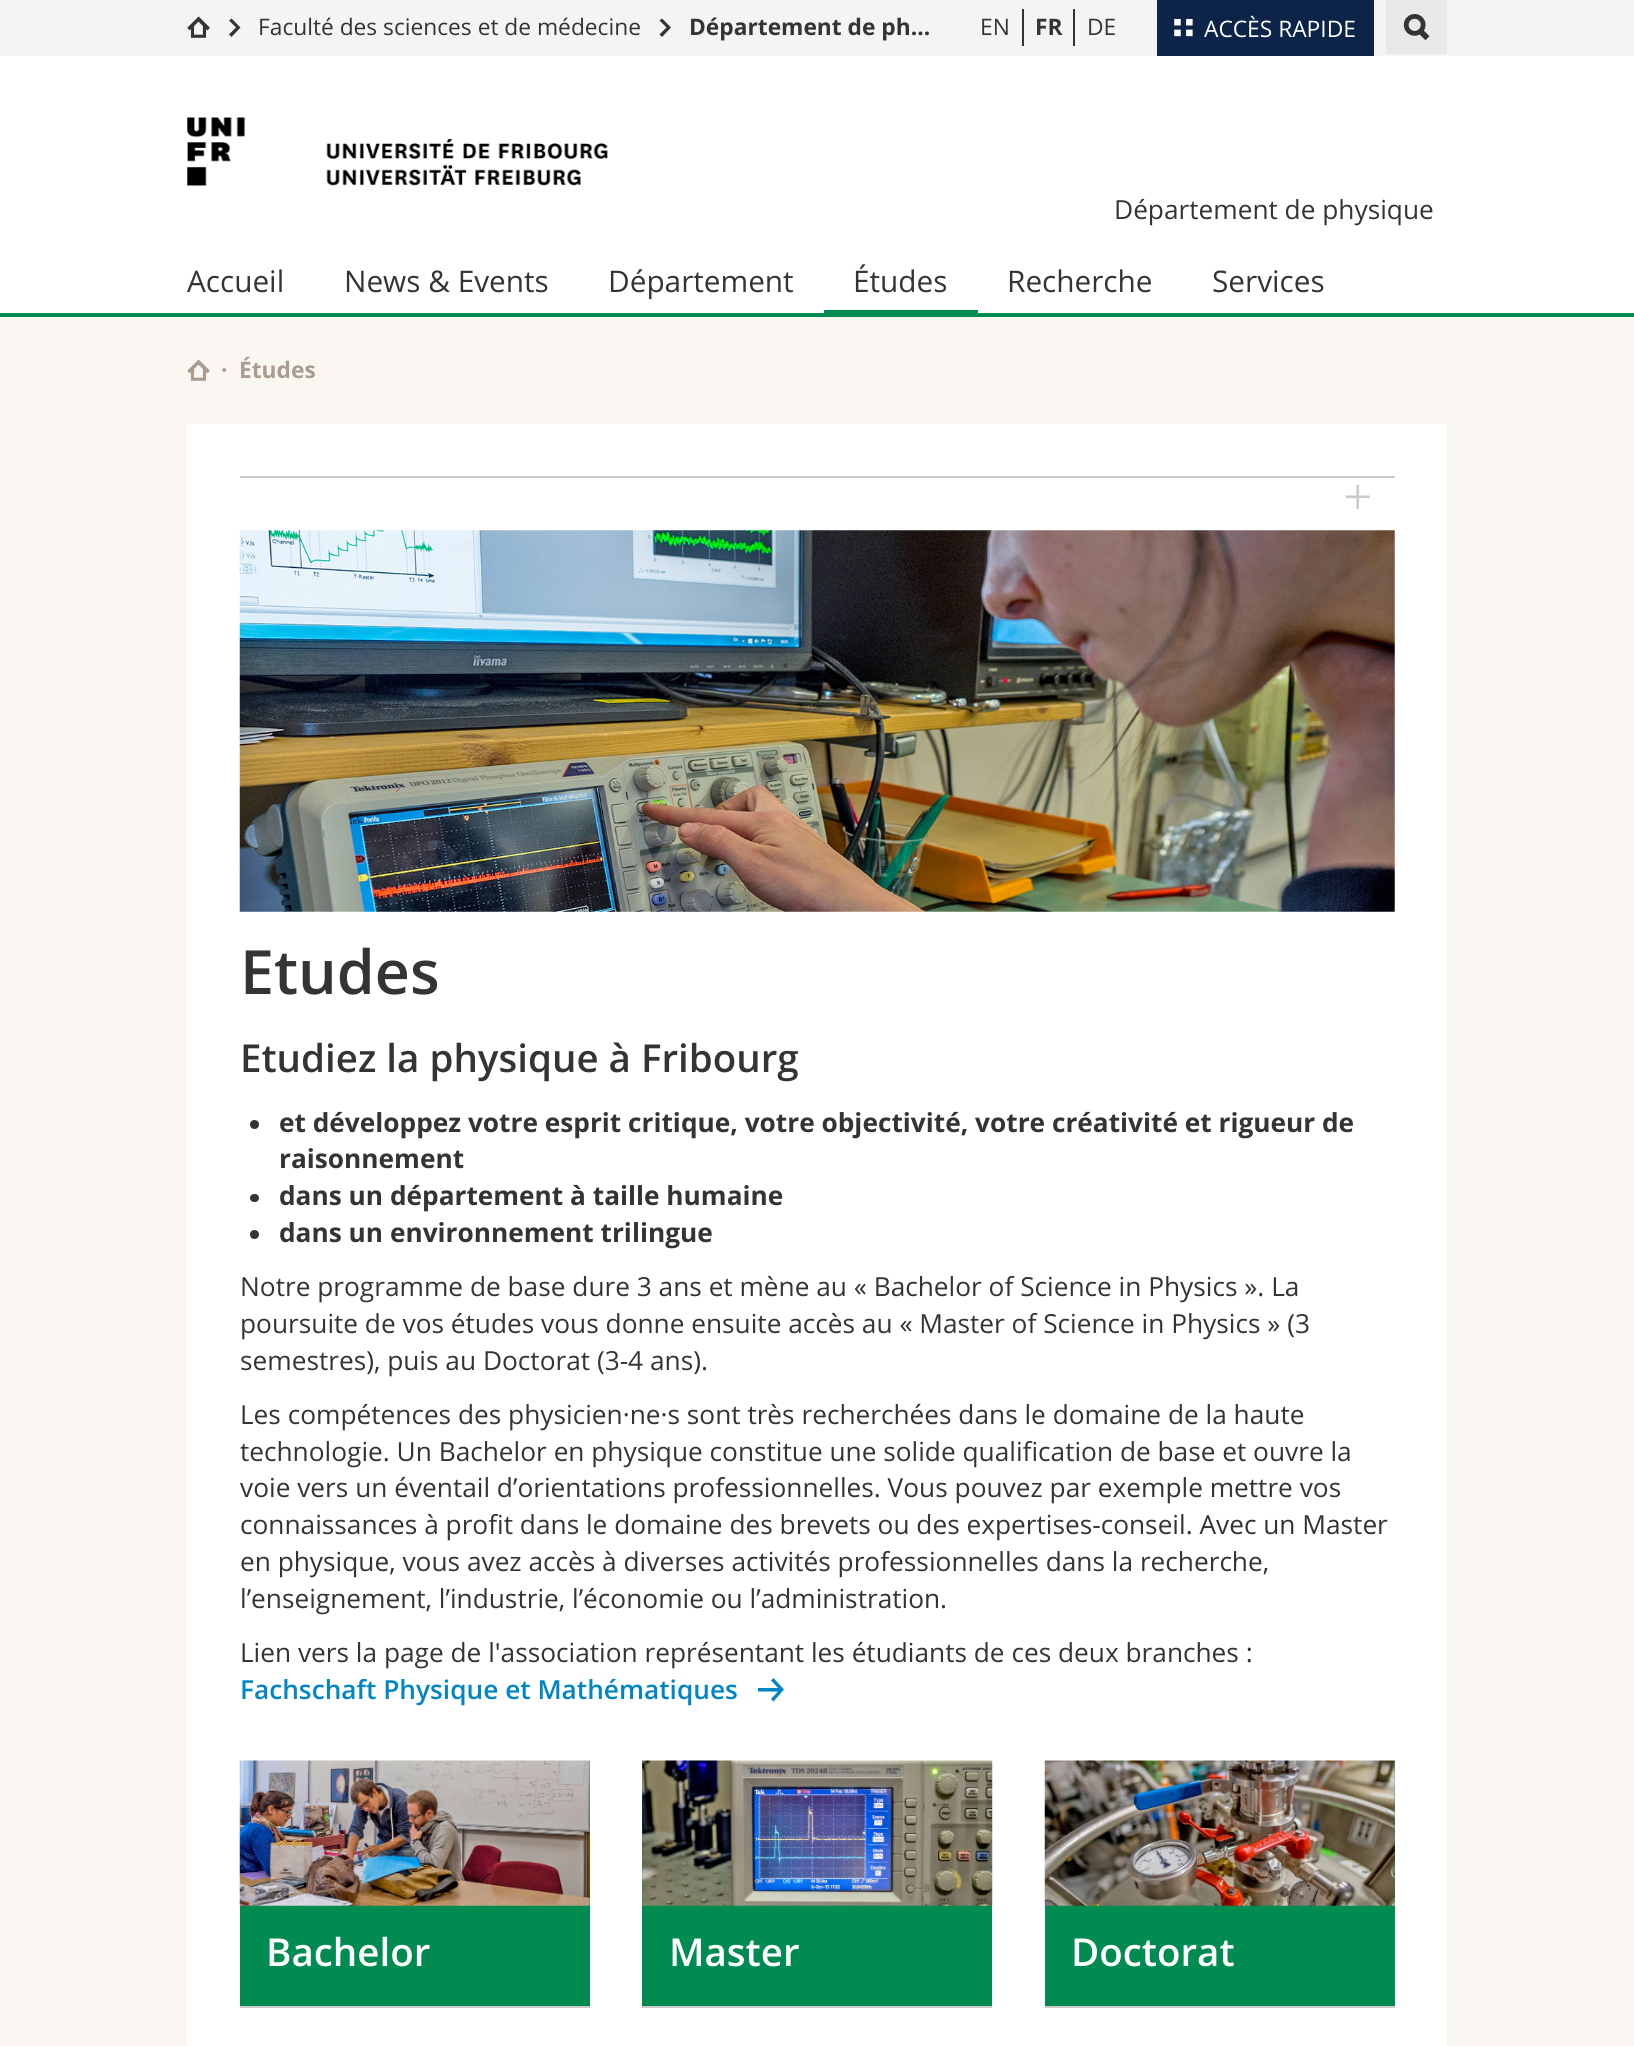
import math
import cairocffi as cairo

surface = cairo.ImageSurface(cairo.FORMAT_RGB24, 1634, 2046)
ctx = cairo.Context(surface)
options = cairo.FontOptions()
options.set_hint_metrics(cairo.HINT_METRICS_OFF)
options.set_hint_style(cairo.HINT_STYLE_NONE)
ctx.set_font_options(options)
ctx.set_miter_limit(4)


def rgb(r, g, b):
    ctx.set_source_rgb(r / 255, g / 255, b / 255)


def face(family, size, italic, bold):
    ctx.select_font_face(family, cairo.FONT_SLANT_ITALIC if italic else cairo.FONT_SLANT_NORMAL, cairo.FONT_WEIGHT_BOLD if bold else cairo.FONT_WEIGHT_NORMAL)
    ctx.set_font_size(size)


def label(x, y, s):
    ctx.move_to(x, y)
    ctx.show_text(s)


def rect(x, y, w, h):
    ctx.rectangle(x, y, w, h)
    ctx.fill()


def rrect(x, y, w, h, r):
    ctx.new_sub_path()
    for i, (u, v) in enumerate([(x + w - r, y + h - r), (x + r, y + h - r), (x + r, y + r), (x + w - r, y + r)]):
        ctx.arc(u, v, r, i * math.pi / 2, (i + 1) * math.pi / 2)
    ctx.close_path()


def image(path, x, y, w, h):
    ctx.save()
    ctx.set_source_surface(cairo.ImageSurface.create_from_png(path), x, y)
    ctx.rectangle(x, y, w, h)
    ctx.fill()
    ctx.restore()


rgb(250, 247, 242)
ctx.paint()
rgb(244, 244, 244)
rect(0, 0, 1634, 56)
image('image0.png', 187, 16, 23, 22)
rgb(52, 52, 52)
ctx.new_path()
ctx.move_to(231.5, 18.5)
ctx.line_to(229, 20.5)
ctx.line_to(236, 27.5)
ctx.line_to(229, 34.5)
ctx.line_to(231.5, 37)
ctx.line_to(240.5, 27.5)
ctx.close_path()
ctx.fill()
face('Open Sans', 22.75, 0, 0)
label(258, 35, 'Faculté des sciences et de médecine')
ctx.new_path()
ctx.move_to(662, 18.5)
ctx.line_to(659.5, 20.5)
ctx.line_to(666.5, 27.5)
ctx.line_to(659.5, 34.5)
ctx.line_to(662, 37)
ctx.line_to(671, 27.5)
ctx.close_path()
ctx.fill()
face('Open Sans', 22.75, 0, 1)
label(689, 35, 'Département de ph…')
face('Open Sans', 22.75, 0, 0)
label(980, 35, 'EN')
rect(1022, 9, 2, 37)
face('Open Sans', 22.75, 0, 1)
label(1035, 35, 'FR')
rect(1073, 9, 2, 37)
face('Open Sans', 22.75, 0, 0)
label(1087, 35, 'DE')
rgb(12, 36, 71)
rect(1157, 0, 217, 56)
image('image1.png', 1174, 18, 19, 19)
rgb(255, 255, 255)
label(1204, 37, 'ACCÈS RAPIDE')
rgb(232, 232, 232)
rect(1386, 0, 61, 54)
image('image2.png', 1403, 14, 27, 27)
rgb(255, 255, 255)
rect(0, 56, 1634, 257)
image('image3.png', 187, 117, 421, 69)
face('Open Sans', 26.25, 0, 0)
rgb(52, 52, 52)
label(1114, 219, 'Département de physique')
face('Open Sans', 29.75, 0, 0)
label(187, 292, 'Accueil')
label(344, 292, 'News & Events')
label(608, 292, 'Département')
label(853, 292, 'Études')
rgb(0, 140, 80)
rect(824, 310, 154, 3)
rgb(52, 52, 52)
label(1007, 292, 'Recherche')
label(1212, 292, 'Services')
rgb(0, 140, 80)
rect(0, 313, 1634, 4)
image('image4.png', 187, 359, 23, 22)
face('Open Sans', 22.75, 0, 1)
rgb(170, 157, 143)
label(221, 378, '·')
label(239, 378, 'Études')
rgb(255, 255, 255)
rect(187, 424, 1260, 1622)
rgb(203, 203, 203)
rect(240, 476, 1155, 2)
image('image5.png', 1345, 484, 25, 25)
image('image6.png', 239, 530, 1156, 382)
face('Open Sans SemiBold', 61, 0, 0)
rgb(52, 52, 52)
label(240, 994, 'Etudes')
face('Open Sans SemiBold', 38.5, 0, 0)
label(240, 1072, 'Etudiez la physique à Fribourg')
ctx.new_path()
ctx.arc(254.5, 1124.5, 4.5, 0, 2 * math.pi)
ctx.fill()
face('Open Sans', 26.25, 0, 1)
label(279, 1132, 'et développez votre esprit critique, votre objectivité, votre créativité et rigueur de')
label(279, 1168, 'raisonnement')
rrect(250, 1194, 9, 8, 4)
ctx.fill()
label(279, 1205, 'dans un département à taille humaine')
ctx.new_path()
ctx.arc(254.5, 1234.5, 4.5, 0, 2 * math.pi)
ctx.fill()
label(279, 1242, 'dans un environnement trilingue')
face('Open Sans', 26.25, 0, 0)
label(240, 1296, 'Notre programme de base dure 3 ans et mène au « Bachelor of Science in Physics ». La')
label(240, 1333, 'poursuite de vos études vous donne ensuite accès au « Master of Science in Physics » (3')
label(240, 1370, 'semestres), puis au Doctorat (3-4 ans).')
label(240, 1424, 'Les compétences des physicien·ne·s sont très recherchées dans le domaine de la haute')
label(240, 1461, 'technologie. Un Bachelor en physique constitue une solide qualification de base et ouvre la')
label(240, 1497, 'voie vers un éventail d’orientations professionnelles. Vous pouvez par exemple mettre vos')
label(240, 1534, 'connaissances à profit dans le domaine des brevets ou des expertises-conseil. Avec un Master')
label(240, 1571, 'en physique, vous avez accès à diverses activités professionnelles dans la recherche,')
label(240, 1608, 'l’enseignement, l’industrie, l’économie ou l’administration.')
label(240, 1662, 'Lien vers la page de l\'association représentant les étudiants de ces deux branches :')
face('Open Sans SemiBold', 26.25, 0, 0)
rgb(0, 133, 198)
label(240, 1699, 'Fachschaft Physique et Mathématiques')
ctx.new_path()
ctx.move_to(773.5, 1701.5)
ctx.line_to(771, 1699)
ctx.line_to(778, 1691.5)
ctx.line_to(758, 1691.5)
ctx.line_to(758, 1688)
ctx.line_to(778, 1688)
ctx.line_to(771, 1680.5)
ctx.line_to(773.5, 1678)
ctx.line_to(784, 1689.5)
ctx.close_path()
ctx.fill()
rgb(0, 140, 80)
rect(240, 1761, 350, 245)
rgb(203, 203, 203)
rect(240, 2006, 350, 2)
image('image7.png', 239, 1760, 351, 146)
face('Open Sans SemiBold', 38.5, 0, 0)
rgb(255, 255, 255)
label(266, 1966, 'Bachelor')
rgb(0, 140, 80)
rect(642, 1761, 350, 245)
rgb(203, 203, 203)
rect(642, 2006, 350, 2)
image('image8.png', 642, 1760, 351, 146)
rgb(255, 255, 255)
label(669, 1966, 'Master')
rgb(0, 140, 80)
rect(1045, 1761, 350, 245)
rgb(203, 203, 203)
rect(1045, 2006, 350, 2)
image('image9.png', 1044, 1760, 351, 146)
rgb(255, 255, 255)
label(1071, 1966, 'Doctorat')
surface.write_to_png('render.png')
